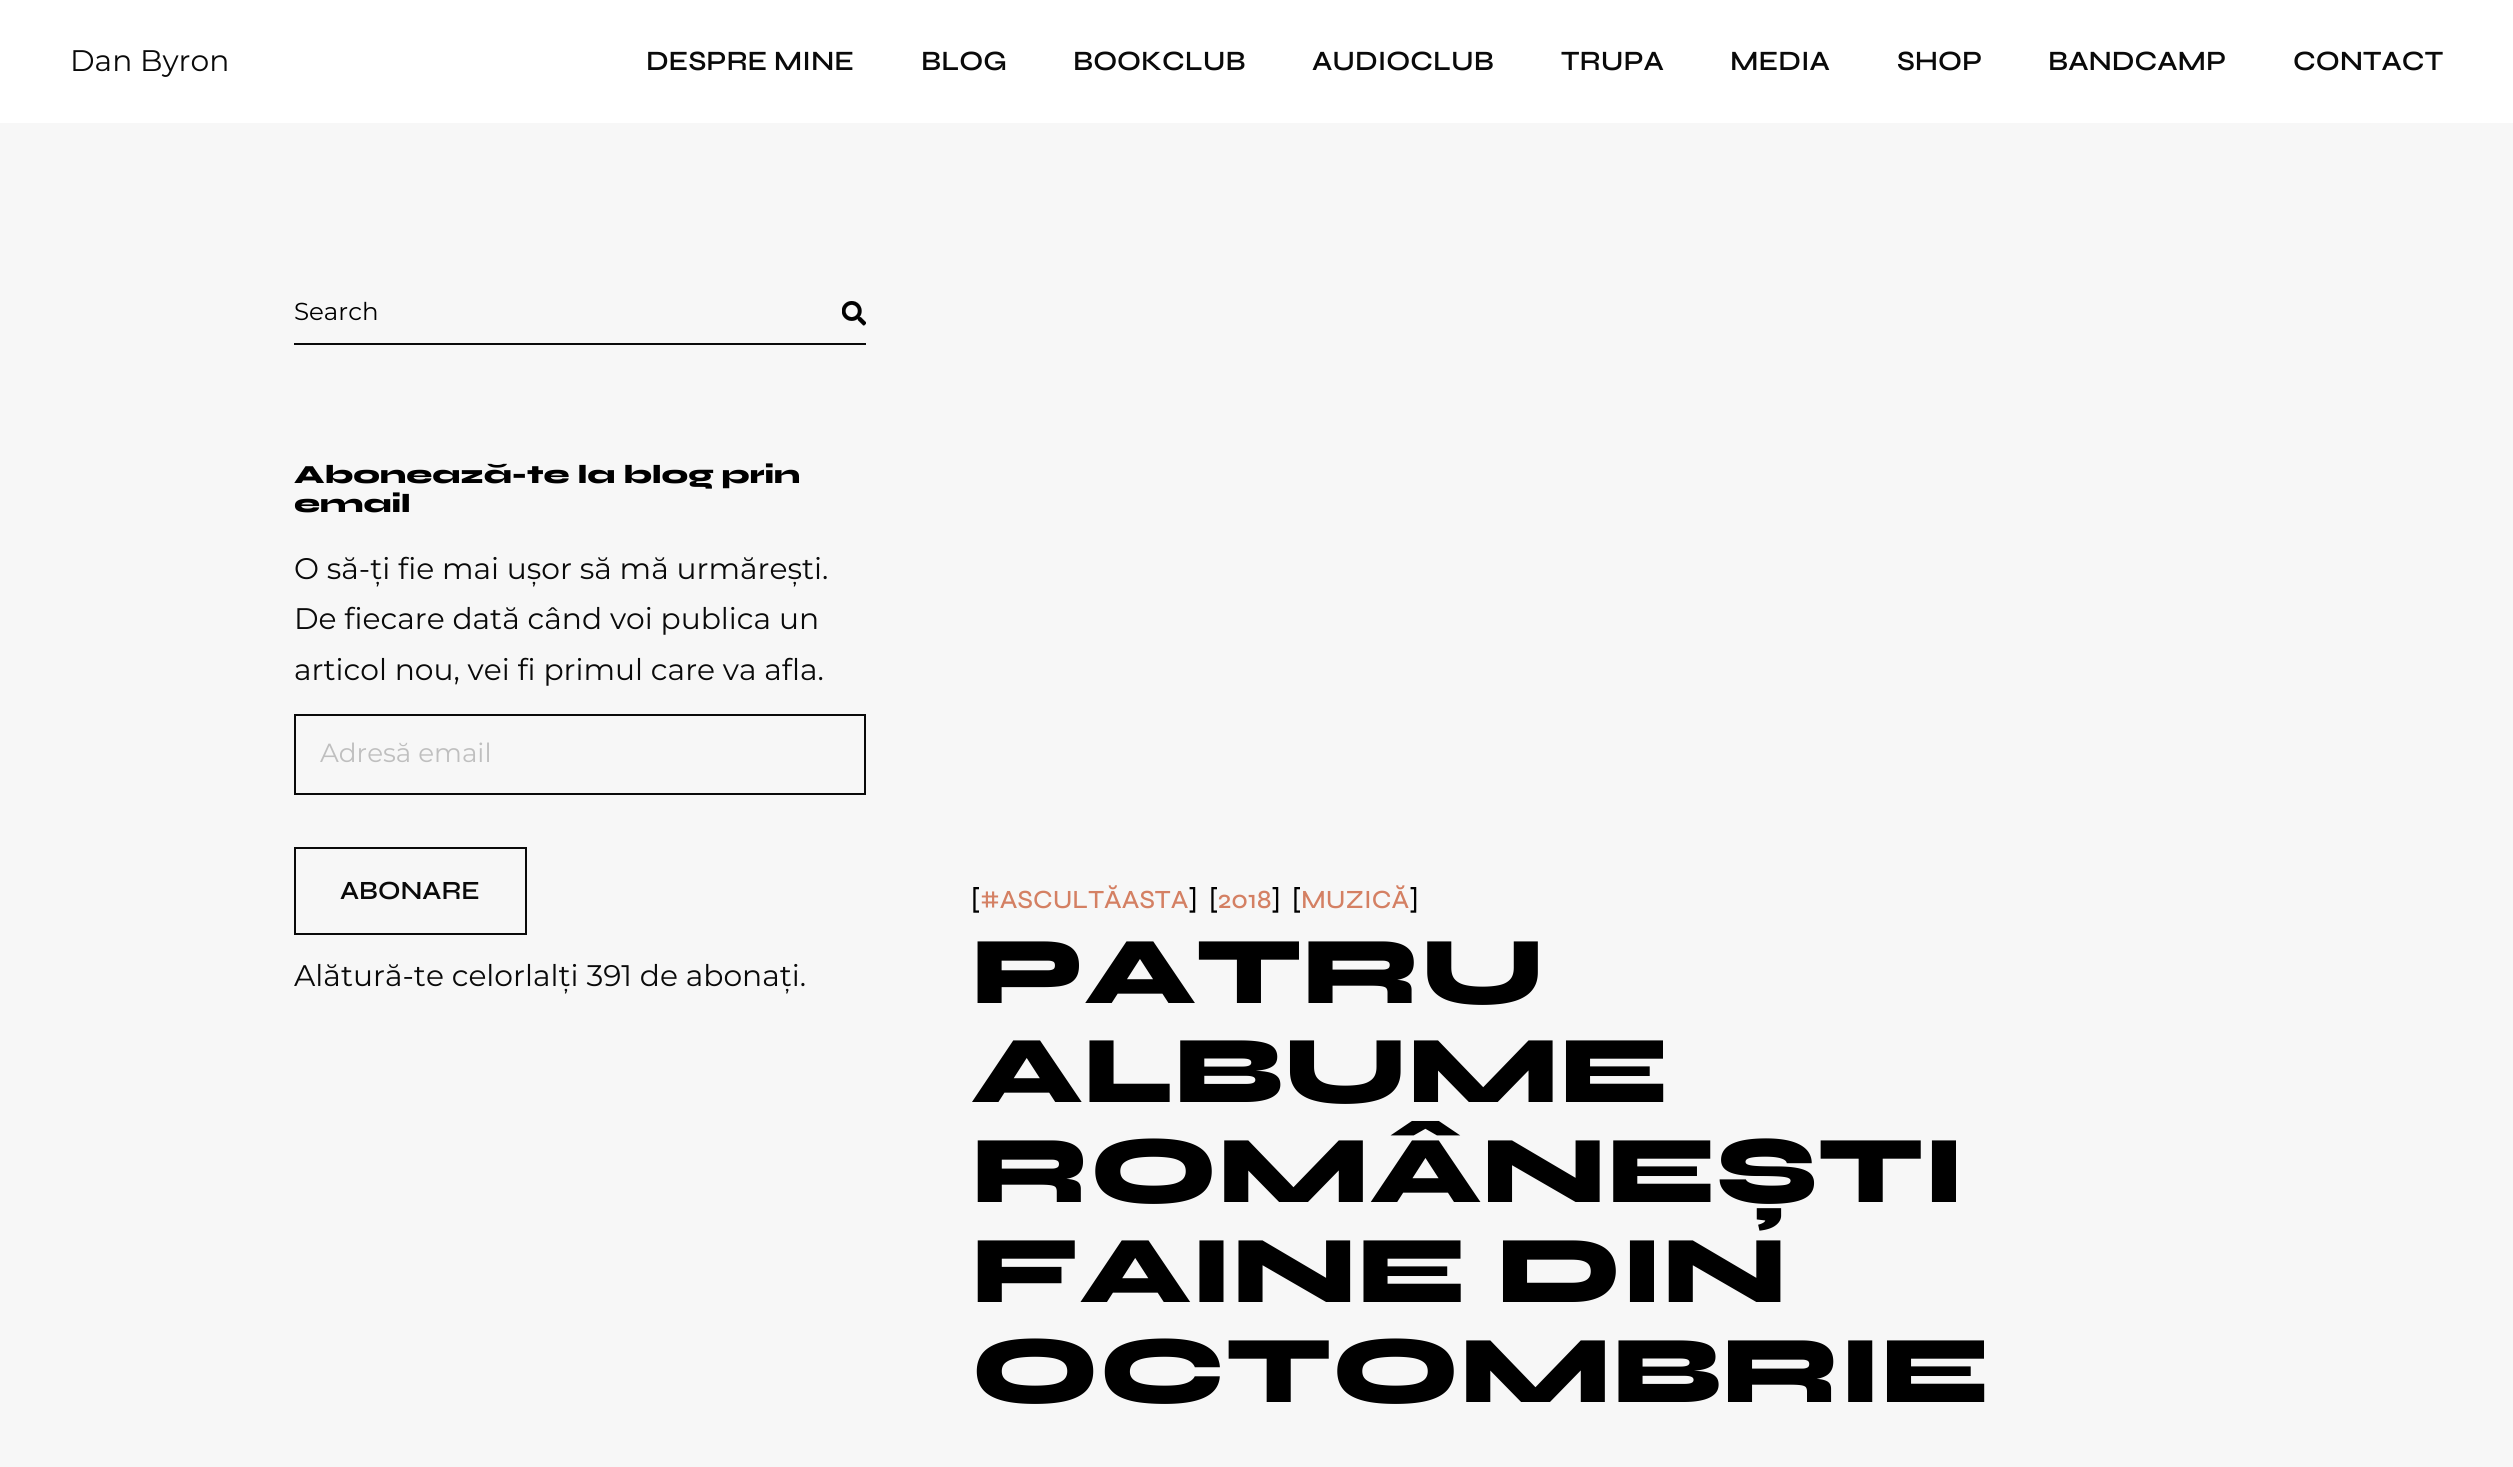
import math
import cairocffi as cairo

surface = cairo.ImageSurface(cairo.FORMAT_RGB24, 2513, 1467)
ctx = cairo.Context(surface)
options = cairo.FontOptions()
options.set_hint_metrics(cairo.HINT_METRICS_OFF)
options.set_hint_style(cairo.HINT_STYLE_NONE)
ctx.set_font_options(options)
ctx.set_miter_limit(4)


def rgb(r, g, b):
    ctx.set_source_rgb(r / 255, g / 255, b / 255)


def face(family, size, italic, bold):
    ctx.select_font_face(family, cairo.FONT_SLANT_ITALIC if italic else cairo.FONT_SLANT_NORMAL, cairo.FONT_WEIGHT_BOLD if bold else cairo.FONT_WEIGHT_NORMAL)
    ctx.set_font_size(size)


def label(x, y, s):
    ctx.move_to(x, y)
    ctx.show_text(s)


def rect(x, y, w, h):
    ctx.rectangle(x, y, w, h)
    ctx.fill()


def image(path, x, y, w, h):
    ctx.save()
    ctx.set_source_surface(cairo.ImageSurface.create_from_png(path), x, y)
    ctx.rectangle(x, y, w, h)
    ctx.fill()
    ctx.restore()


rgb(247, 247, 247)
ctx.paint()
rgb(255, 255, 255)
rect(0, 0, 2513, 123)
face('Montserrat', 29.75, 0, 0)
rgb(10, 10, 10)
label(70, 71, 'Dan Byron')
face('Syne SemiBold', 28, 0, 0)
label(646, 70, 'DESPRE MINE')
label(921, 70, 'BLOG')
label(1073, 70, 'BOOKCLUB')
label(1312, 70, 'AUDIOCLUB')
label(1561, 70, 'TRUPA')
label(1730, 70, 'MEDIA')
label(1897, 70, 'SHOP')
label(2048, 70, 'BANDCAMP')
label(2293, 70, 'CONTACT')
rect(294, 343, 572, 2)
face('Montserrat', 24.5, 0, 0)
rgb(0, 0, 0)
label(294, 320, 'Search')
image('image0.png', 842, 301, 24, 25)
face('Syne ExtraBold', 26.25, 0, 0)
label(294, 483, 'Abonează-te la blog prin')
label(294, 512, 'email')
face('Montserrat', 29.75, 0, 0)
rgb(10, 10, 10)
label(294, 579, 'O să-ți fie mai ușor să mă urmărești.')
label(294, 629, 'De fiecare dată când voi publica un')
label(294, 680, 'articol nou, vei fi primul care va afla.')
ctx.rectangle(295, 715, 570, 79)
ctx.stroke()
face('Montserrat', 26.25, 0, 0)
rgb(191, 191, 191)
label(320, 762, 'Adresă email')
ctx.rectangle(295, 848, 231, 86)
rgb(10, 10, 10)
ctx.stroke()
face('Syne SemiBold', 26.25, 0, 0)
label(340, 899, 'ABONARE')
face('Montserrat', 29.75, 0, 0)
label(294, 986, 'Alătură-te celorlalți 391 de abonați.')
face('Syne Medium', 26.25, 0, 0)
rgb(0, 0, 0)
label(971, 908, '[')
rgb(212, 128, 99)
label(980, 908, '#ASCULTĂASTA')
rgb(0, 0, 0)
label(1188, 908, ']')
label(1209, 908, '[')
rgb(212, 128, 99)
label(1218, 908, '2018')
rgb(0, 0, 0)
label(1271, 908, ']')
label(1292, 908, '[')
rgb(212, 128, 99)
label(1301, 908, 'MUZICĂ')
rgb(0, 0, 0)
label(1409, 908, ']')
face('Syne ExtraBold', 96.25, 0, 0)
label(971, 1003, 'PATRU')
label(971, 1102, 'ALBUME')
label(971, 1202, 'ROMÂNEȘTI')
label(971, 1302, 'FAINE DIN')
label(971, 1402, 'OCTOMBRIE')
surface.write_to_png('render.png')
